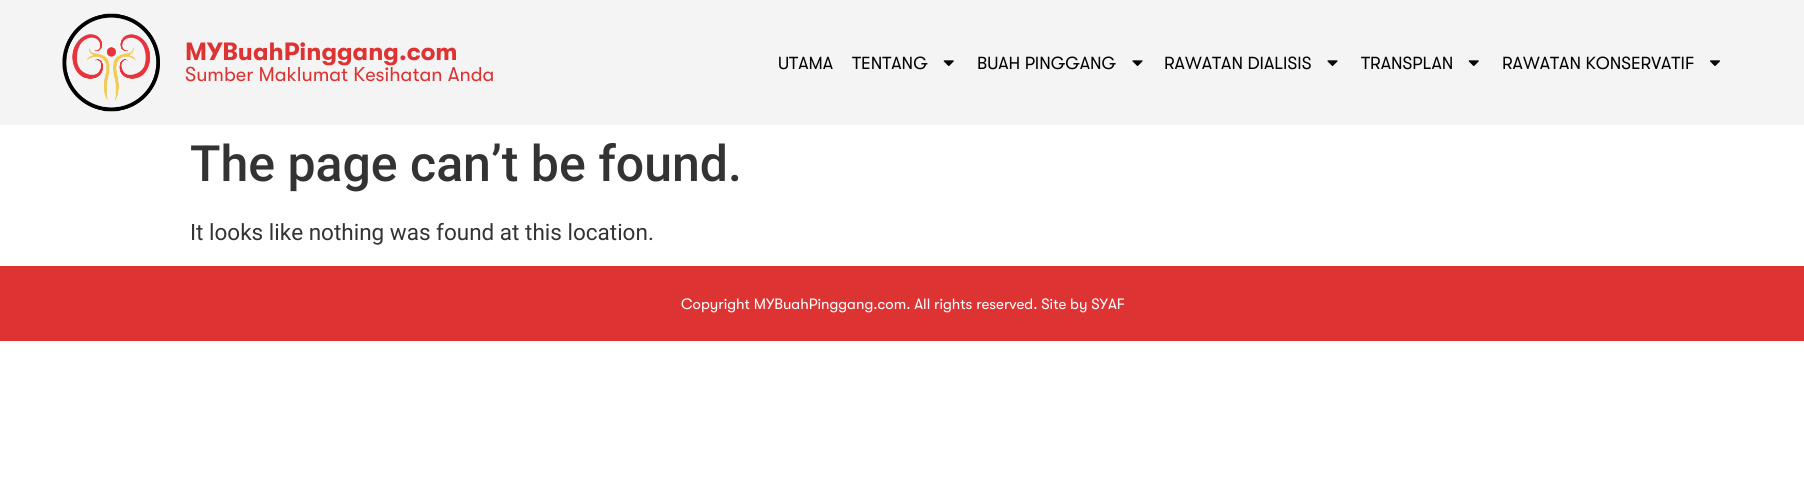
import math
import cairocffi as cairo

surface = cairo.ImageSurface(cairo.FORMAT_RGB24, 1804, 478)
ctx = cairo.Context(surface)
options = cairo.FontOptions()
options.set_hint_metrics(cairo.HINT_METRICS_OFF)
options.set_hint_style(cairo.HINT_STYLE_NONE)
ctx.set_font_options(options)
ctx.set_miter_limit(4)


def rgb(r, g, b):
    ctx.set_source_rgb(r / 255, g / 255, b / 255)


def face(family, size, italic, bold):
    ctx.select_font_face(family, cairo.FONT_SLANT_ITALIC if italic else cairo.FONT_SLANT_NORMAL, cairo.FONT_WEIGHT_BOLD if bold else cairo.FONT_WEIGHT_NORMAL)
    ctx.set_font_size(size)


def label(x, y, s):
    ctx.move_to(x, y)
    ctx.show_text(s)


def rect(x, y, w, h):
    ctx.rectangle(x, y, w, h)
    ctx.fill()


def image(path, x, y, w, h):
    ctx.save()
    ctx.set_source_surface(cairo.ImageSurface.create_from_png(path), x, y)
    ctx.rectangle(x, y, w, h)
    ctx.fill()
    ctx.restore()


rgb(255, 255, 255)
ctx.paint()
rgb(244, 244, 244)
rect(0, 0, 1804, 125)
image('image0.png', 62, 13, 98, 99)
face('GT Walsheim', 25, 0, 1)
rgb(222, 51, 51)
label(185, 60, 'MYBuahPinggang.com')
face('GT Walsheim', 20, 0, 0)
label(185, 81, 'Sumber Maklumat Kesihatan Anda')
face('GT Walsheim', 17.5, 0, 0)
rgb(3, 3, 3)
label(778, 69, 'UTAMA')
label(852, 69, 'TENTANG')
image('image1.png', 943, 60, 11, 6)
label(977, 69, 'BUAH PINGGANG')
image('image2.png', 1132, 60, 11, 6)
label(1164, 69, 'RAWATAN DIALISIS')
image('image2.png', 1327, 60, 11, 6)
label(1361, 69, 'TRANSPLAN')
image('image1.png', 1468, 60, 11, 6)
label(1502, 69, 'RAWATAN KONSERVATIF')
image('image3.png', 1710, 60, 10, 6)
face('Roboto Medium', 50, 0, 0)
rgb(51, 51, 51)
label(190, 181, 'The page can’t be found.')
face('Roboto', 22.5, 0, 0)
label(190, 240, 'It looks like nothing was found at this location.')
rgb(222, 51, 51)
rect(0, 266, 1804, 75)
face('GT Walsheim', 15, 0, 0)
rgb(255, 255, 255)
label(681, 309, 'Copyright MYBuahPinggang.com. All rights reserved. Site by SYAF')
surface.write_to_png('render.png')
